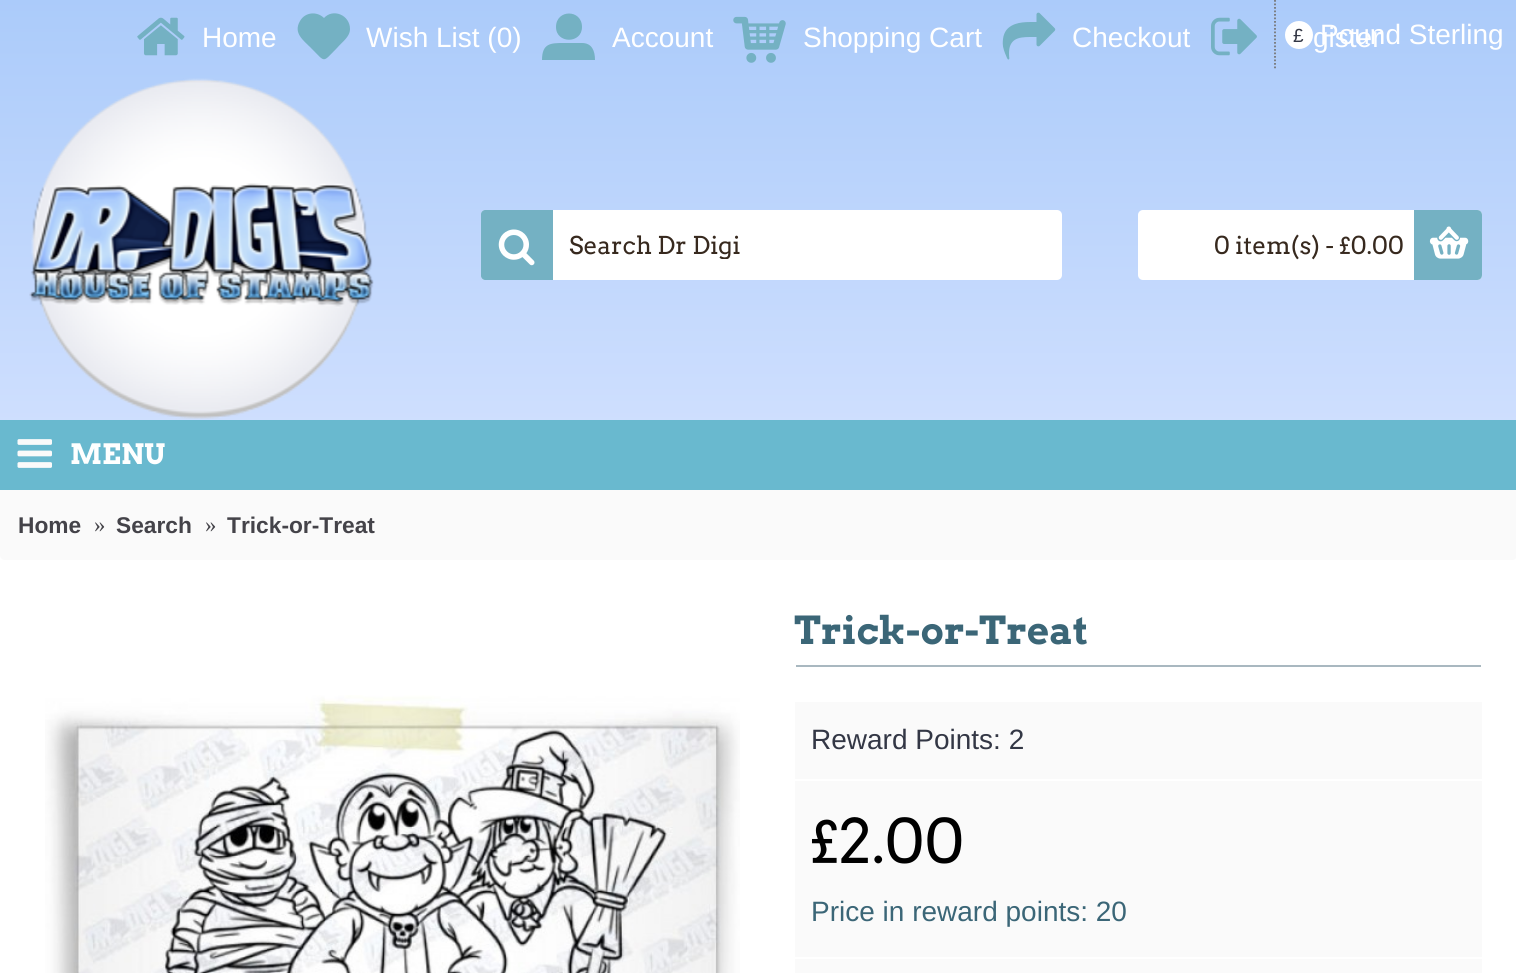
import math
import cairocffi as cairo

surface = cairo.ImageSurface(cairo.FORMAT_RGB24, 1516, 973)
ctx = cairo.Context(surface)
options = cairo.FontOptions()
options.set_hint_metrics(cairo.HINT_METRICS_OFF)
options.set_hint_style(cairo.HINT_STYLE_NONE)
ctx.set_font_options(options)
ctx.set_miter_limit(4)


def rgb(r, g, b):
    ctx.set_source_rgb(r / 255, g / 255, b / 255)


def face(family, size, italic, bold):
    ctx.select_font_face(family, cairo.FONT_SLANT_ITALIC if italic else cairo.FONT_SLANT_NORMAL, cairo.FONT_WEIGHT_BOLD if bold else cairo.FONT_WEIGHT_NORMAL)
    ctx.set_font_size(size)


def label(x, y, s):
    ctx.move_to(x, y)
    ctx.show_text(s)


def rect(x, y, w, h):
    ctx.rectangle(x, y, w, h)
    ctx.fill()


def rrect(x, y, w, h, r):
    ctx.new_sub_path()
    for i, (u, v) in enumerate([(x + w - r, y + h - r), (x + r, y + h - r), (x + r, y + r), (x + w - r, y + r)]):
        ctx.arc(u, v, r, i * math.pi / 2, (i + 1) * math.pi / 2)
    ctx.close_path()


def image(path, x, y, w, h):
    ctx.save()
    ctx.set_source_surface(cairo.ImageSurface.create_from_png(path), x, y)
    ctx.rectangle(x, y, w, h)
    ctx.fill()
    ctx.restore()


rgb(255, 255, 255)
ctx.paint()
gradient = cairo.LinearGradient(759, 0, 759, 490)
gradient.add_color_stop_rgba(0, 0.671, 0.796, 0.98, 1)
gradient.add_color_stop_rgba(1, 0.831, 0.886, 1, 1)
ctx.set_source(gradient)
rect(0, 0, 1516, 420)
image('image0.png', 137, 17, 48, 39)
face('Liberation Sans', 28, 0, 0)
rgb(255, 255, 255)
label(202, 47, 'Home')
rgb(116, 177, 195)
ctx.new_path()
ctx.move_to(350, 29)
ctx.curve_to(350, 37, 342, 42, 337, 48)
ctx.curve_to(322, 63, 326, 63, 311, 48)
ctx.curve_to(303, 40, 293, 33, 300, 21)
ctx.curve_to(305, 12, 317, 11, 324, 18)
ctx.curve_to(333, 8, 350, 15, 350, 29)
ctx.close_path()
ctx.fill()
rgb(255, 255, 255)
label(366, 47, 'Wish List (0)')
rgb(116, 177, 195)
ctx.new_path()
ctx.move_to(556, 27)
ctx.curve_to(556, 44, 582, 44, 582, 27)
ctx.curve_to(582, 9, 556, 9, 556, 27)
ctx.close_path()
ctx.move_to(582, 43)
ctx.line_to(564, 43)
ctx.curve_to(551, 43, 542, 43, 542, 60)
ctx.line_to(595, 60)
ctx.curve_to(595, 51, 592, 43, 582, 43)
ctx.close_path()
ctx.fill()
rgb(255, 255, 255)
label(612, 47, 'Account')
image('image1.png', 733, 16, 53, 47)
label(803, 47, 'Shopping Cart')
image('image2.png', 1002, 12, 54, 48)
label(1072, 47, 'Checkout')
image('image3.png', 1211, 17, 46, 39)
label(1313, 47, 'gister')
ctx.new_path()
ctx.move_to(1275, 0)
ctx.line_to(1275, 70)
rgb(119, 119, 119)
ctx.set_line_width(1.8)
ctx.set_dash([1.75, 1.75])
ctx.stroke()
rgb(255, 255, 255)
ctx.arc(1299, 35, 14, 0, 2 * math.pi)
ctx.fill()
face('Liberation Sans', 19, 0, 0)
rgb(51, 55, 69)
label(1293, 42, '£')
face('Liberation Sans', 28, 0, 0)
rgb(255, 255, 255)
label(1320, 44, 'Pound Sterling')
image('image4.png', 29, 78, 345, 341)
rrect(481, 210, 581, 70, 5)
ctx.fill()
rgb(116, 177, 195)
ctx.new_path()
ctx.move_to(485, 210)
ctx.line_to(553, 210)
ctx.line_to(553, 280)
ctx.line_to(485, 280)
ctx.curve_to(483, 280, 481, 278, 481, 276)
ctx.line_to(481, 214)
ctx.curve_to(481, 212, 483, 210, 485, 210)
ctx.close_path()
ctx.fill()
image('image5.png', 498, 229, 37, 37)
ctx.save()
ctx.rectangle(569, 231, 493, 28)
ctx.clip()
face('Arvo', 24.5, 0, 0)
rgb(55, 41, 30)
label(569, 254, 'Search Dr Digi')
ctx.restore()
rgb(255, 255, 255)
rrect(1138, 210, 344, 70, 5)
ctx.fill()
face('Arvo', 24.5, 0, 0)
rgb(55, 41, 30)
label(1214, 254, '0 item(s) - £0.00')
rgb(116, 177, 195)
ctx.new_path()
ctx.move_to(1414, 210)
ctx.line_to(1477, 210)
ctx.curve_to(1480, 210, 1482, 212, 1482, 215)
ctx.line_to(1482, 275)
ctx.curve_to(1482, 278, 1480, 280, 1477, 280)
ctx.line_to(1414, 280)
ctx.close_path()
ctx.fill()
image('image6.png', 1429, 226, 40, 33)
rgb(105, 185, 207)
rect(0, 420, 1516, 70)
image('image7.png', 17, 439, 35, 29)
face('Arvo', 28, 0, 1)
rgb(255, 255, 255)
label(70, 464, 'MENU')
rgb(250, 250, 250)
ctx.new_path()
ctx.move_to(0, 490)
ctx.line_to(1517, 490)
ctx.line_to(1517, 555)
ctx.curve_to(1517, 558, 1515, 560, 1512, 560)
ctx.line_to(5, 560)
ctx.curve_to(2, 560, 0, 558, 0, 555)
ctx.close_path()
ctx.fill()
face('Liberation Sans', 22.75, 0, 1)
rgb(68, 67, 73)
label(18, 533, 'Home')
face('Liberation Serif', 22.75, 0, 0)
label(94, 532, '»')
face('Liberation Sans', 22.75, 0, 1)
label(116, 533, 'Search')
face('Liberation Serif', 22.75, 0, 0)
label(205, 532, '»')
face('Liberation Sans', 22.75, 0, 1)
label(227, 533, 'Trick-or-Treat')
image('image8.png', 45, 695, 695, 278)
rgb(169, 184, 192)
rect(796, 665, 685, 2)
ctx.save()
ctx.new_path()
ctx.move_to(798, 595)
ctx.line_to(1479, 595)
ctx.curve_to(1480.5, 595, 1482, 596.5, 1482, 598.5)
ctx.line_to(1482, 663)
ctx.curve_to(1482, 664, 1480.5, 665, 1479, 665)
ctx.line_to(798, 665)
ctx.curve_to(796, 665, 794.5, 664, 794.5, 663)
ctx.line_to(794.5, 598.5)
ctx.curve_to(794.5, 596.5, 796, 595, 798, 595)
ctx.close_path()
ctx.clip()
face('Arvo', 38.5, 0, 1)
rgb(59, 102, 119)
label(794, 644, 'Trick-or-Treat')
ctx.restore()
rgb(250, 250, 250)
rect(795, 702, 687, 77)
face('Liberation Sans', 28, 0, 0)
rgb(51, 55, 69)
label(811, 749, 'Reward Points: 2')
rgb(250, 250, 250)
rect(795, 781, 687, 176)
face('Arvo', 61, 0, 0)
rgb(0, 0, 0)
label(811, 863, '£2.00')
face('Liberation Sans', 28, 0, 0)
rgb(59, 102, 119)
label(811, 921, 'Price in reward points: 20')
rgb(250, 250, 250)
rect(795, 959, 687, 14)
surface.write_to_png('render.png')
